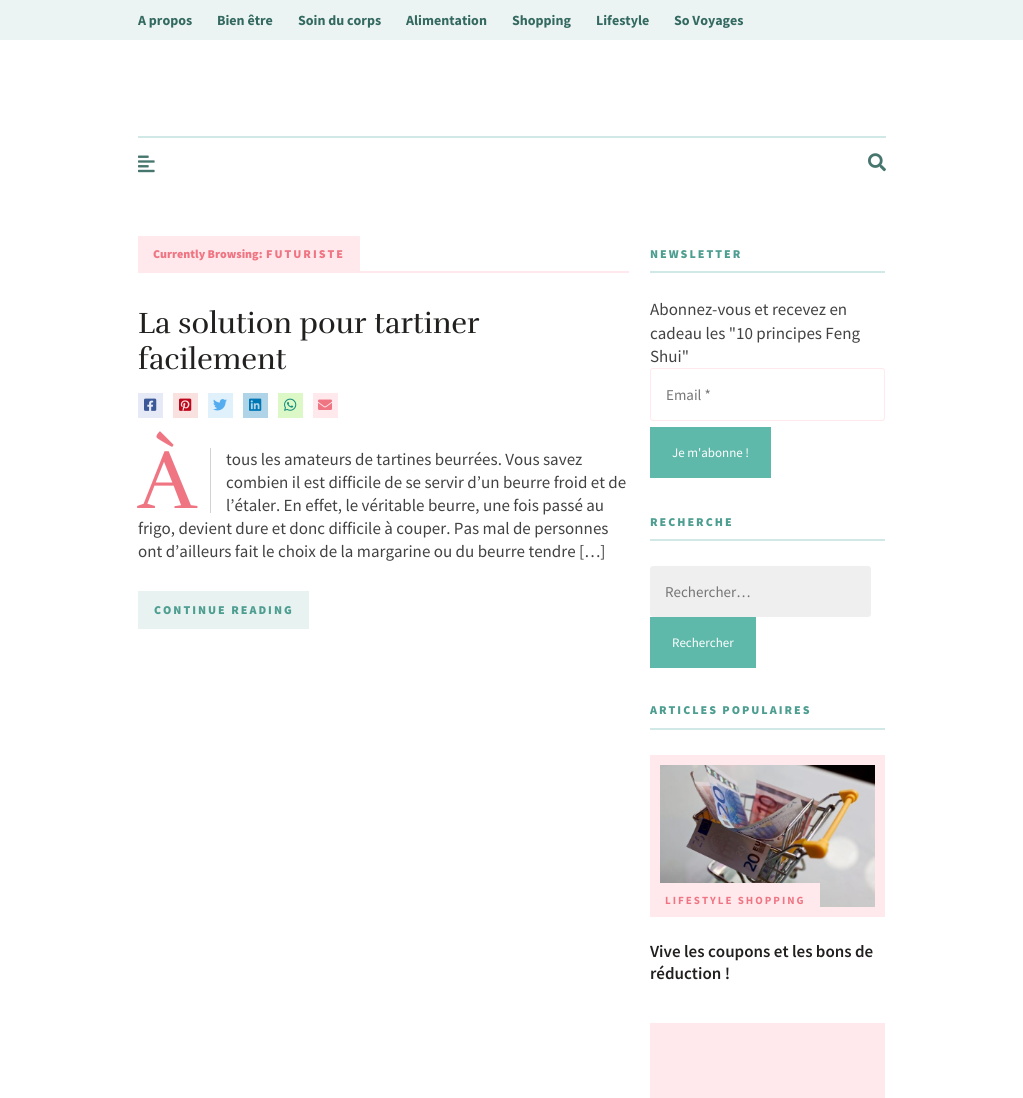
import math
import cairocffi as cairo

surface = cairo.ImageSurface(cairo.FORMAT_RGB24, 1023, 1098)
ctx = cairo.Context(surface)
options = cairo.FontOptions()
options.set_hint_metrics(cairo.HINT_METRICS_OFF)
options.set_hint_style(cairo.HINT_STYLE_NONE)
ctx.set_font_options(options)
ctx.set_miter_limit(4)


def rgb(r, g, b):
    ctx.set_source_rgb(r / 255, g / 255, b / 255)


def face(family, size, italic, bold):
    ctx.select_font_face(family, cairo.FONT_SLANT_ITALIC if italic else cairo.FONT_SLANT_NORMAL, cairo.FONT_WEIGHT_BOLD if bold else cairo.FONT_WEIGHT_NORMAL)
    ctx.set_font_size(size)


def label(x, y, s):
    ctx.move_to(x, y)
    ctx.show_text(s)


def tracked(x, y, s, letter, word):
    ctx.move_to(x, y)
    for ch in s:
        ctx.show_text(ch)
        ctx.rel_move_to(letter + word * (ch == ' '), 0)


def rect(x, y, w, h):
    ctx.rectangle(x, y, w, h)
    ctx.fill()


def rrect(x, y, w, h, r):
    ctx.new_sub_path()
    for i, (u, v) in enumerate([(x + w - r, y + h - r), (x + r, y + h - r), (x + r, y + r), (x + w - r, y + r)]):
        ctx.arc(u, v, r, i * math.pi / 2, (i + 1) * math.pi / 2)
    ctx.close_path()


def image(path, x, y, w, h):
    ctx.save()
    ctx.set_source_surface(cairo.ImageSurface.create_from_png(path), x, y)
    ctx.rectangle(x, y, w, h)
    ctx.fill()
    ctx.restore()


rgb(255, 255, 255)
ctx.paint()
rgb(235, 244, 243)
rect(0, 0, 1023, 40)
face('Source Sans Pro', 14, 0, 1)
rgb(51, 105, 96)
label(138, 25, 'A propos')
label(217, 25, 'Bien être')
label(298, 25, 'Soin du corps')
label(406, 25, 'Alimentation')
label(512, 25, 'Shopping')
label(596, 25, 'Lifestyle')
label(674, 25, 'So Voyages')
rgb(208, 233, 230)
rect(138, 136, 748, 2)
image('image0.png', 138, 155, 17, 18)
image('image1.png', 868, 153, 18, 19)
rgb(255, 233, 236)
rect(138, 271, 491, 2)
rect(138, 236, 222, 35)
face('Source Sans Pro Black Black', 12, 0, 0)
rgb(239, 117, 131)
label(153, 258, 'Currently Browsing:')
tracked(266, 258, 'FUTURISTE', 2, 0)
face('Rufina', 30, 0, 0)
rgb(33, 32, 31)
label(138, 333, 'La solution pour tartiner')
label(138, 369, 'facilement')
rgb(230, 234, 246)
rect(138, 393, 25, 25)
image('image2.png', 144, 398, 13, 13)
rgb(249, 225, 224)
rect(173, 393, 25, 25)
image('image3.png', 179, 398, 13, 13)
rgb(225, 241, 252)
rect(208, 393, 25, 25)
image('image4.png', 213, 399, 14, 12)
rgb(176, 212, 231)
rect(243, 393, 25, 25)
image('image5.png', 249, 398, 13, 13)
rgb(220, 248, 198)
rect(278, 393, 25, 25)
image('image6.png', 284, 398, 13, 13)
rgb(255, 233, 236)
rect(313, 393, 25, 25)
image('image7.png', 318, 399, 14, 11)
rgb(211, 211, 211)
rect(210, 448, 1, 65)
face('Rufina', 85, 0, 0)
rgb(239, 117, 131)
label(138, 508, 'À')
face('Source Sans Pro', 17, 0, 0)
rgb(66, 66, 66)
label(226, 465, 'tous les amateurs de tartines beurrées. Vous savez')
label(226, 488, 'combien il est difficile de se servir d’un beurre froid et de')
label(226, 511, 'l’étaler. En effet, le véritable beurre, une fois passé au')
label(138, 534, 'frigo, devient dure et donc difficile à couper. Pas mal de personnes')
label(138, 557, 'ont d’ailleurs fait le choix de la margarine ou du beurre tendre […]')
rgb(232, 242, 240)
rect(138, 591, 171, 38)
face('Source Sans Pro Black Black', 12, 0, 0)
rgb(77, 158, 145)
tracked(154, 614, 'CONTINUE READING', 2, 0)
rgb(208, 233, 230)
rect(650, 271, 235, 2)
rgb(77, 158, 145)
tracked(650, 258, 'NEWSLETTER', 2, 0)
face('Source Sans Pro', 17, 0, 0)
rgb(66, 66, 66)
label(650, 315, 'Abonnez-vous et recevez en')
label(650, 339, 'cadeau les "10 principes Feng')
label(650, 362, 'Shui"')
rrect(650.5, 368.5, 234, 52, 2.5)
rgb(255, 233, 236)
ctx.set_line_width(1)
ctx.stroke()
face('Source Sans Pro', 15, 0, 0)
rgb(117, 117, 117)
label(666, 400, 'Email *')
rgb(94, 185, 170)
rect(650, 427, 121, 51)
face('Source Sans Pro', 13, 0, 0)
rgb(255, 255, 255)
label(672, 457, 'Je m\'abonne !')
rgb(208, 233, 230)
rect(650, 539, 235, 2)
face('Source Sans Pro Black Black', 12, 0, 0)
rgb(77, 158, 145)
tracked(650, 526, 'RECHERCHE', 2, 0)
rgb(239, 239, 239)
rrect(650, 566, 221, 51, 3)
ctx.fill()
face('Source Sans Pro', 15, 0, 0)
rgb(117, 117, 117)
label(665, 597, 'Rechercher…')
rgb(94, 185, 170)
rect(650, 617, 106, 51)
face('Source Sans Pro', 13, 0, 0)
rgb(255, 255, 255)
label(672, 647, 'Rechercher')
rgb(208, 233, 230)
rect(650, 728, 235, 2)
face('Source Sans Pro Black Black', 12, 0, 0)
rgb(77, 158, 145)
tracked(650, 714, 'ARTICLES POPULAIRES', 2, 0)
rgb(255, 233, 236)
rect(650, 755, 235, 162)
image('image8.png', 660, 765, 215, 142)
rect(660, 883, 160, 24)
face('Source Sans Pro', 11, 0, 1)
rgb(239, 117, 131)
tracked(665, 904, 'LIFESTYLE SHOPPING', 2, 0)
face('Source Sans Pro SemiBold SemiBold', 17, 0, 0)
rgb(33, 32, 31)
label(650, 957, 'Vive les coupons et les bons de')
label(650, 979, 'réduction !')
rgb(255, 233, 236)
rect(650, 1023, 235, 75)
surface.write_to_png('render.png')
